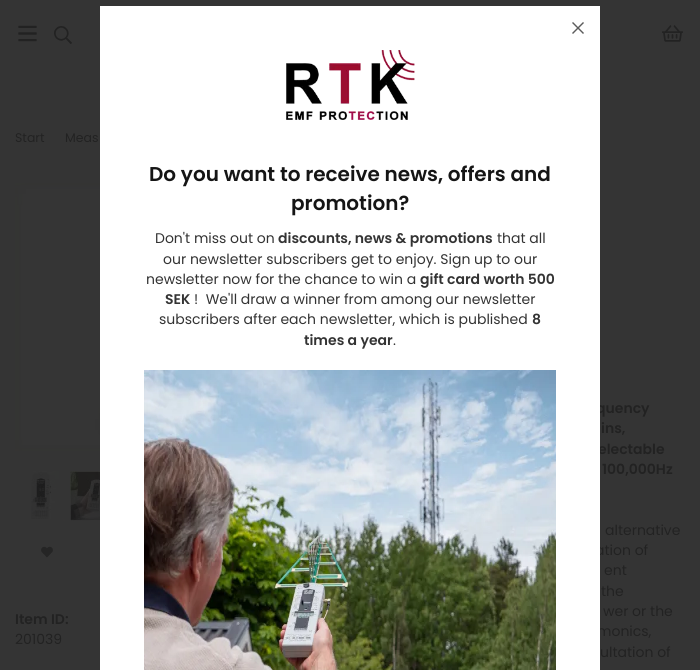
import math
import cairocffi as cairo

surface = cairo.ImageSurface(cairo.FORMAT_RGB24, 700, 670)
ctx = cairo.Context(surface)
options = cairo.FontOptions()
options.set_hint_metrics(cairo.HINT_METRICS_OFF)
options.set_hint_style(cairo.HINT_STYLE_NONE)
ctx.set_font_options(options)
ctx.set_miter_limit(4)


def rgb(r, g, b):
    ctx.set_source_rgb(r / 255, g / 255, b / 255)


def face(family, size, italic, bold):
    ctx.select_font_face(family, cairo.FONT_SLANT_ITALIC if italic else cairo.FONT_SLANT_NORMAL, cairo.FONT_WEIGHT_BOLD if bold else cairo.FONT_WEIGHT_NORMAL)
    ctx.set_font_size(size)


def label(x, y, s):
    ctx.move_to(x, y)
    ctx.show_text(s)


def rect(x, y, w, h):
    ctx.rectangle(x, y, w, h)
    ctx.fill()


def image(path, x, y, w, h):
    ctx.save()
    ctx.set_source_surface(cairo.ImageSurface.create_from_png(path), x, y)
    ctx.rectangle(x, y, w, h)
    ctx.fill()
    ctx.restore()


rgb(52, 52, 52)
ctx.paint()
image('image0.png', 18, 25, 19, 17)
image('image1.png', 54, 26, 18, 18)
image('image2.png', 662, 25, 21, 17)
face('Poppins', 12.5, 0, 0)
rgb(34, 34, 34)
label(15, 142, 'Start')
label(65, 142, 'Meas')
image('image3.png', 15, 183, 85, 268)
image('image4.png', 31, 471, 34, 50)
image('image5.png', 70, 471, 30, 50)
face('Poppins SemiBold', 14, 0, 0)
label(596, 413, 'quency')
label(601, 433, 'ins,')
label(598, 454, 'electable')
label(602, 474, '100,000Hz')
face('Poppins', 14, 0, 0)
label(605, 535, 'alternative')
label(595, 555, 'ation of')
label(604, 575, 'ent')
label(601, 596, 'the')
label(603, 616, 'wer or the')
label(597, 636, 'monics,')
label(600, 657, 'ultation of')
image('image6.png', 41, 546, 12, 12)
face('Poppins SemiBold', 14, 0, 0)
label(15, 624, 'Item ID:')
face('Poppins', 14, 0, 0)
label(15, 644, '201039')
rgb(255, 255, 255)
rect(100, 6, 500, 664)
image('image7.png', 572, 22, 12, 12)
image('image8.png', 286, 50, 129, 70)
face('Poppins SemiBold', 20, 0, 0)
rgb(21, 21, 21)
label(149, 181, 'Do you want to receive news, offers and')
label(291, 210, 'promotion?')
face('Poppins', 14, 0, 0)
rgb(51, 51, 51)
label(155, 243, 'Don\'t miss out on')
face('Poppins SemiBold', 14, 0, 0)
label(278, 243, 'discounts, news & promotions')
face('Poppins', 14, 0, 0)
label(497, 243, 'that all')
label(163, 264, 'our newsletter subscribers get to enjoy. Sign up to our')
label(146, 284, 'newsletter now for the chance to win a')
face('Poppins SemiBold', 14, 0, 0)
label(420, 284, 'gift card worth 500')
label(165, 304, 'SEK')
face('Poppins', 14, 0, 0)
label(194, 304, '!  We\'ll draw a winner from among our newsletter')
label(159, 324, 'subscribers after each newsletter, which is published')
face('Poppins SemiBold', 14, 0, 0)
label(532, 324, '8')
label(304, 345, 'times a year')
face('Poppins', 14, 0, 0)
label(393, 345, '.')
image('image9.png', 144, 370, 412, 300)
surface.write_to_png('render.png')
